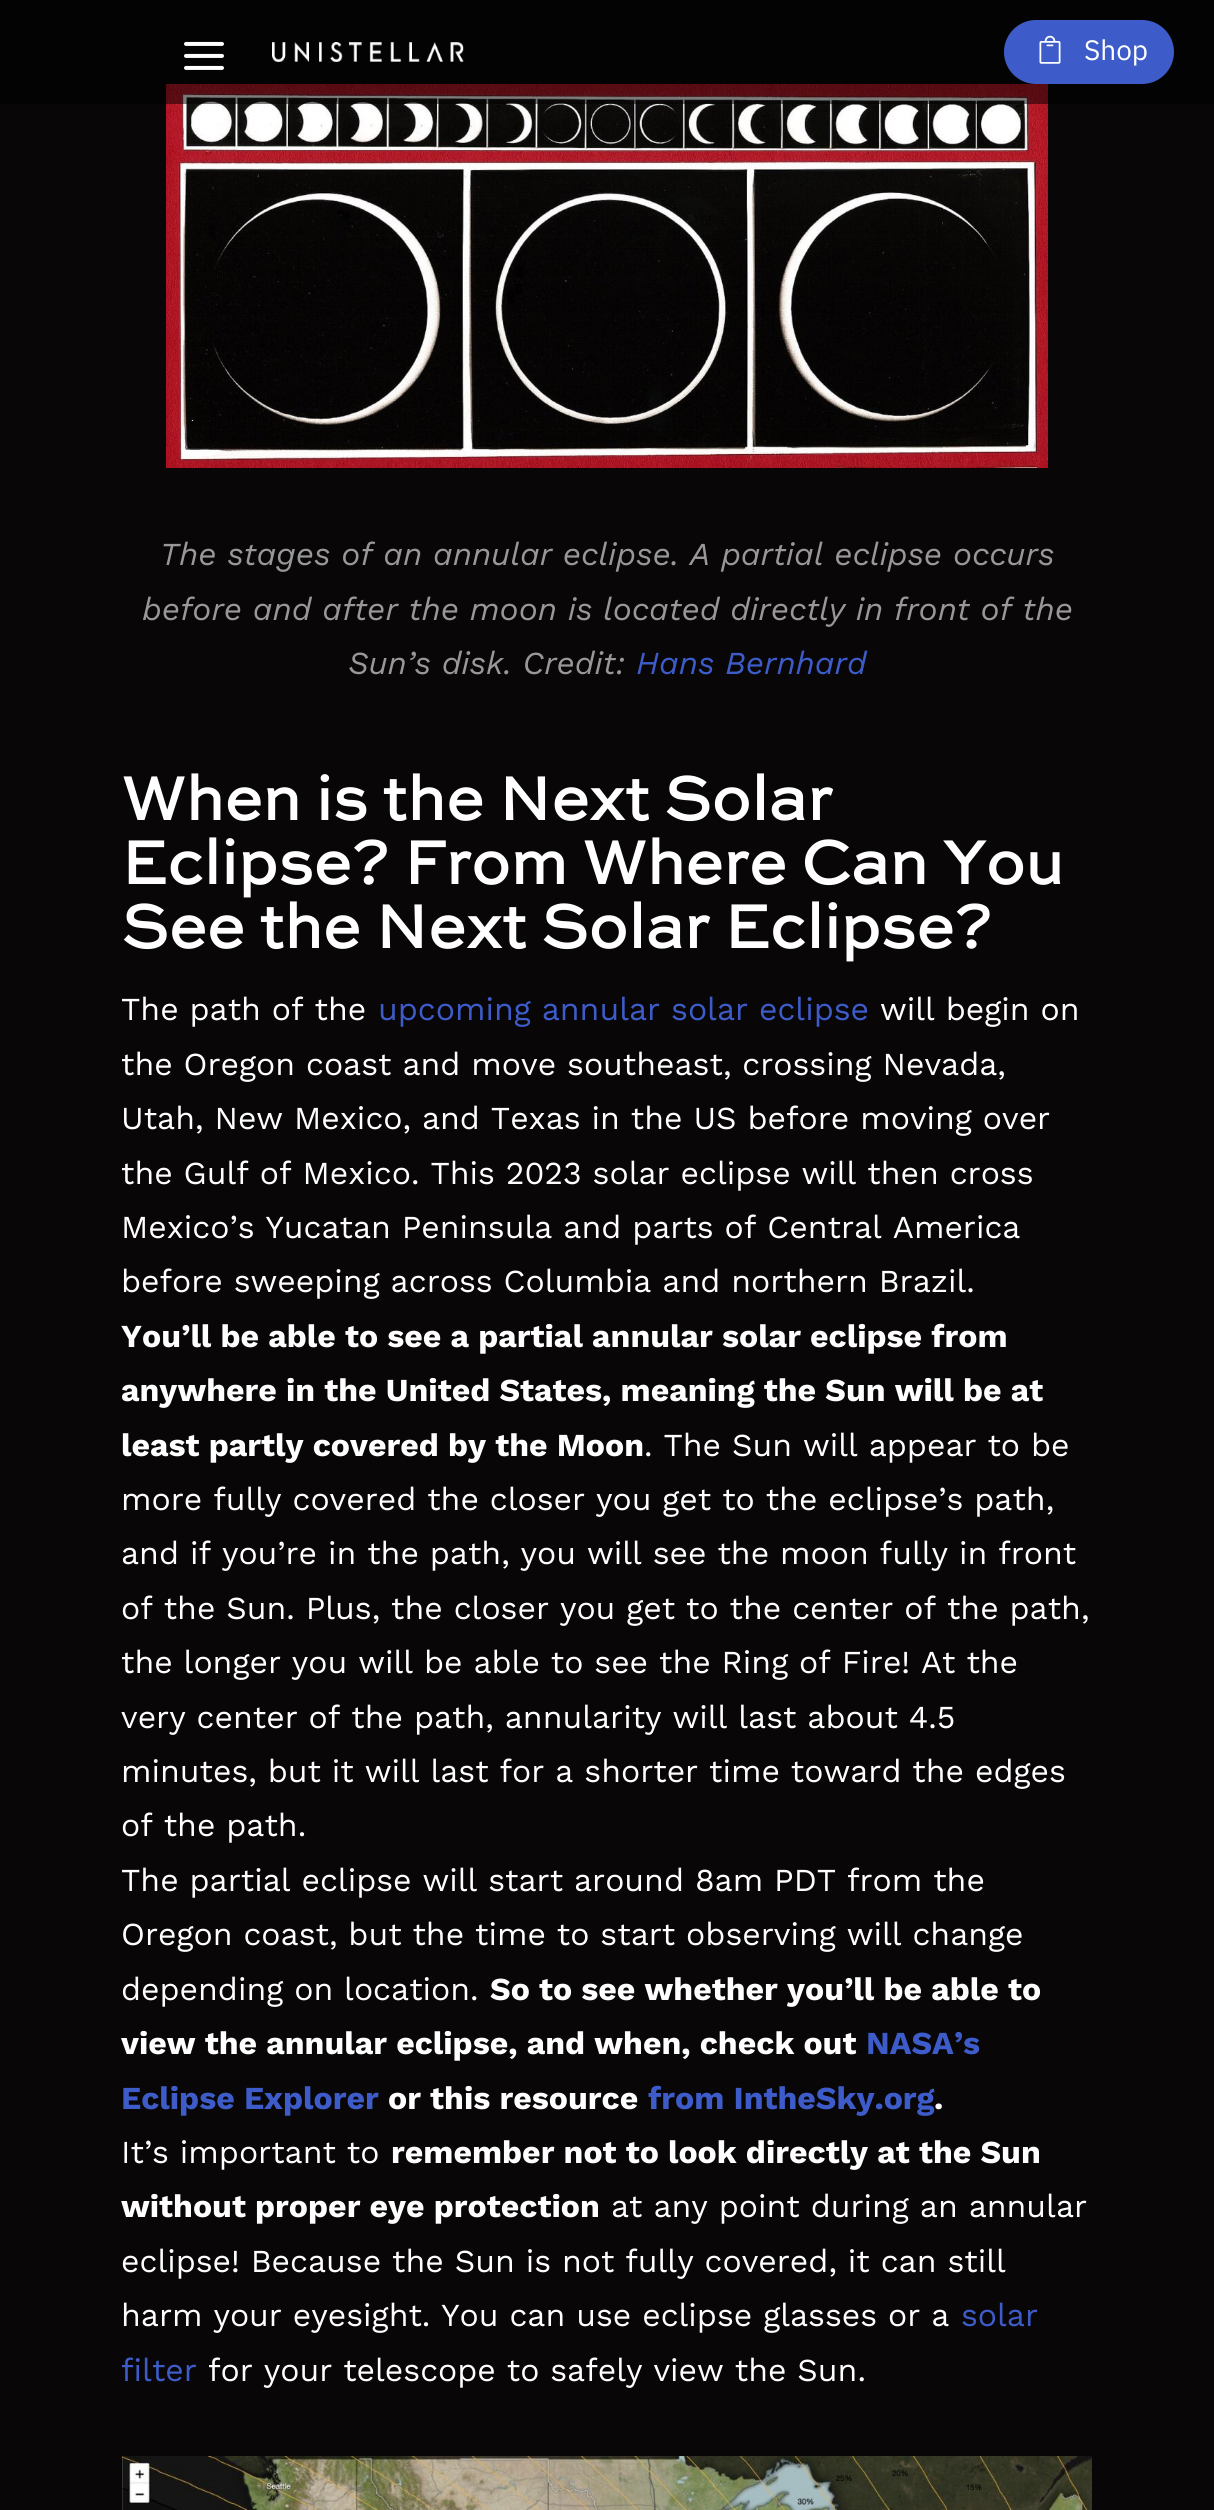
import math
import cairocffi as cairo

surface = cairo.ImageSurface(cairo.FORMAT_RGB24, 1214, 2510)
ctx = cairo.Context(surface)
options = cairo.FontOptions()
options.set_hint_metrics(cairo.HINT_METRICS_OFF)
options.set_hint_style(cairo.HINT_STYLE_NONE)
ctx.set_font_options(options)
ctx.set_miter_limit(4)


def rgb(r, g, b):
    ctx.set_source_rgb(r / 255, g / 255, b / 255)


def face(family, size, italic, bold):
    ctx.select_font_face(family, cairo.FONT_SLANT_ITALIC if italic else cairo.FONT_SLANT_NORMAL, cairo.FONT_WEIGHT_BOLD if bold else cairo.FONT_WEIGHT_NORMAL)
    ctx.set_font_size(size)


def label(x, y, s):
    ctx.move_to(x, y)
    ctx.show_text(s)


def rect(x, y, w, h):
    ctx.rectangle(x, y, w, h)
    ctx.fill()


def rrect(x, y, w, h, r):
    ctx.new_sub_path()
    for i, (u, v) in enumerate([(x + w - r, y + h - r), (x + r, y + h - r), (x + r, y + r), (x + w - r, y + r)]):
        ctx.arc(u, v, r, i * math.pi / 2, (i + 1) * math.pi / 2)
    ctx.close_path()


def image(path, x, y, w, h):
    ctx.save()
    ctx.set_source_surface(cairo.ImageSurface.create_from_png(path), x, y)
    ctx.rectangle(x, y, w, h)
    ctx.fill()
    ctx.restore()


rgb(8, 6, 7)
ctx.paint()
image('image3.png', 166, 84, 882, 384)
ctx.set_source_rgba(0, 0, 0, 0.5)
rect(0, 0, 1214, 104)
image('image0.png', 184, 41, 40, 29)
image('image1.png', 272, 42, 192, 20)
rgb(61, 92, 202)
rrect(1004, 20, 170, 64, 32)
ctx.fill()
image('image2.png', 1039, 35, 22, 29)
face('IBM Plex Sans', 28, 0, 0)
rgb(255, 255, 255)
label(1084, 60, 'Shop')
face('Work Sans', 32, 1, 0)
rgb(152, 152, 152)
label(160, 565, 'The stages of an annular eclipse. A partial eclipse occurs')
label(142, 620, 'before and after the moon is located directly in front of the')
label(348, 674, 'Sun’s disk. Credit:')
rgb(61, 92, 202)
label(636, 674, 'Hans Bernhard')
face('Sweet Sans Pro', 64, 0, 1)
rgb(255, 255, 255)
label(121, 820, 'When is the Next Solar')
label(121, 884, 'Eclipse? From Where Can You')
label(121, 948, 'See the Next Solar Eclipse?')
face('Work Sans', 32, 0, 0)
label(121, 1020, 'The path of the')
rgb(61, 92, 202)
label(378, 1020, 'upcoming annular solar eclipse')
rgb(255, 255, 255)
label(880, 1020, 'will begin on')
label(121, 1075, 'the Oregon coast and move southeast, crossing Nevada,')
label(121, 1129, 'Utah, New Mexico, and Texas in the US before moving over')
label(121, 1184, 'the Gulf of Mexico. This 2023 solar eclipse will then cross')
label(121, 1238, 'Mexico’s Yucatan Peninsula and parts of Central America')
label(121, 1292, 'before sweeping across Columbia and northern Brazil.')
face('Work Sans', 32, 0, 1)
label(121, 1347, 'You’ll be able to see a partial annular solar eclipse from')
label(121, 1401, 'anywhere in the United States, meaning the Sun will be at')
label(121, 1456, 'least partly covered by the Moon')
face('Work Sans', 32, 0, 0)
label(644, 1456, '. The Sun will appear to be')
label(121, 1510, 'more fully covered the closer you get to the eclipse’s path,')
label(121, 1564, 'and if you’re in the path, you will see the moon fully in front')
label(121, 1619, 'of the Sun. Plus, the closer you get to the center of the path,')
label(121, 1673, 'the longer you will be able to see the Ring of Fire! At the')
label(121, 1728, 'very center of the path, annularity will last about 4.5')
label(121, 1782, 'minutes, but it will last for a shorter time toward the edges')
label(121, 1836, 'of the path.')
label(121, 1891, 'The partial eclipse will start around 8am PDT from the')
label(121, 1945, 'Oregon coast, but the time to start observing will change')
label(121, 2000, 'depending on location.')
face('Work Sans', 32, 0, 1)
label(490, 2000, 'So to see whether you’ll be able to')
label(121, 2054, 'view the annular eclipse, and when, check out')
rgb(61, 92, 202)
label(866, 2054, 'NASA’s')
label(121, 2109, 'Eclipse Explorer')
rgb(255, 255, 255)
label(388, 2109, 'or this resource')
rgb(61, 92, 202)
label(648, 2109, 'from IntheSky.org')
rgb(255, 255, 255)
label(934, 2109, '.')
face('Work Sans', 32, 0, 0)
label(121, 2163, 'It’s important to')
face('Work Sans', 32, 0, 1)
label(391, 2163, 'remember not to look directly at the Sun')
label(121, 2217, 'without proper eye protection')
face('Work Sans', 32, 0, 0)
label(611, 2217, 'at any point during an annular')
label(121, 2272, 'eclipse! Because the Sun is not fully covered, it can still')
label(121, 2326, 'harm your eyesight. You can use eclipse glasses or a')
rgb(61, 92, 202)
label(961, 2326, 'solar')
label(121, 2381, 'filter')
rgb(255, 255, 255)
label(208, 2381, 'for your telescope to safely view the Sun.')
image('image4.png', 122, 2456, 970, 54)
surface.write_to_png('render.png')
